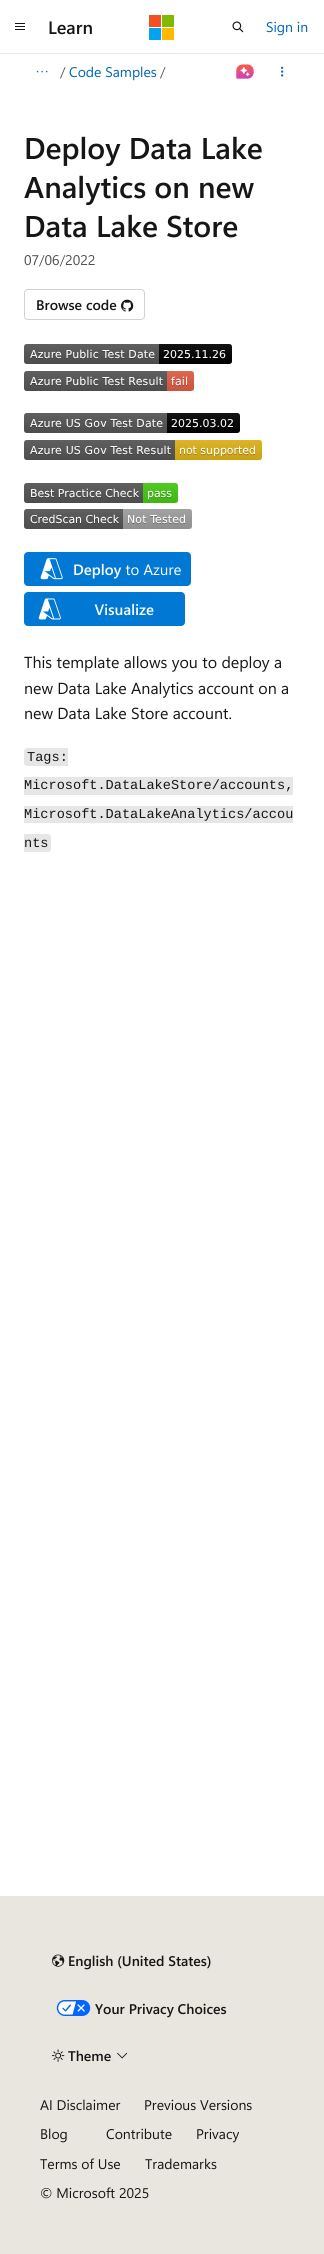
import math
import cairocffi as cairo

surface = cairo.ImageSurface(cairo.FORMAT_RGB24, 324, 2254)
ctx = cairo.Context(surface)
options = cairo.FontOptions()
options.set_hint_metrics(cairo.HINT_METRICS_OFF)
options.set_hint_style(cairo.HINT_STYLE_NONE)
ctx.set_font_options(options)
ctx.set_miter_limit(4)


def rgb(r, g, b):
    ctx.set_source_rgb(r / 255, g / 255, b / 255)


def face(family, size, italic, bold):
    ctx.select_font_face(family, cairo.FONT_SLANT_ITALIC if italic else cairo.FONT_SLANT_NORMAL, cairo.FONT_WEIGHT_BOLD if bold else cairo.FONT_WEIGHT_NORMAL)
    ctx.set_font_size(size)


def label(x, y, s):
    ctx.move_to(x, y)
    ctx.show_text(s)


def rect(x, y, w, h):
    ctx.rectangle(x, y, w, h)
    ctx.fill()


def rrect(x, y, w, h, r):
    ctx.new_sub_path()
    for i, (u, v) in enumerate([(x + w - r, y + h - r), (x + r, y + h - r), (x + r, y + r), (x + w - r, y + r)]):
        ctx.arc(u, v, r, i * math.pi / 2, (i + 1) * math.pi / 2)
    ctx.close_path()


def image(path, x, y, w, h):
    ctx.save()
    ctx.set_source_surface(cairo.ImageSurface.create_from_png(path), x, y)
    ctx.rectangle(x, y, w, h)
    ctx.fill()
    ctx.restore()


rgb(255, 255, 255)
ctx.paint()
rgb(230, 230, 230)
rect(0, 53, 324, 1)
image('image0.png', 15, 23, 10, 7)
face('Segoe UI SemiBold', 18, 0, 0)
rgb(22, 22, 22)
label(48, 34, 'Learn')
rgb(242, 80, 34)
rect(149, 15, 12, 12)
rgb(127, 186, 0)
rect(162, 15, 12, 12)
rgb(0, 164, 239)
rect(149, 28, 12, 12)
rgb(255, 185, 0)
rect(162, 28, 12, 12)
image('image1.png', 232, 21, 12, 12)
face('Segoe UI', 14, 0, 0)
rgb(0, 101, 179)
label(266, 32, 'Sign in')
image('image2.png', 36, 70, 12, 3)
rgb(80, 80, 80)
label(60, 77, '/')
rgb(0, 101, 179)
label(69, 77, 'Code Samples')
rgb(80, 80, 80)
label(160, 77, '/')
image('image3.png', 236, 64, 18, 15)
image('image4.png', 281, 66, 3, 11)
face('Segoe UI SemiBold', 30, 0, 0)
rgb(22, 22, 22)
label(24, 159, 'Deploy Data Lake')
label(24, 198, 'Analytics on new')
label(24, 237, 'Data Lake Store')
face('Segoe UI', 14, 0, 0)
rgb(80, 80, 80)
label(24, 265, '07/06/2022')
rrect(24.5, 289.5, 120, 30, 3.5)
rgb(209, 209, 209)
ctx.set_line_width(1)
ctx.stroke()
face('Segoe UI SemiBold', 14, 0, 0)
rgb(22, 22, 22)
label(36, 310, 'Browse code')
image('image5.png', 121, 299, 13, 13)
image('image6.png', 24, 344, 208, 20)
image('image7.png', 24, 371, 170, 20)
image('image8.png', 24, 413, 216, 20)
image('image9.png', 24, 440, 238, 20)
image('image10.png', 24, 483, 154, 20)
image('image11.png', 24, 509, 168, 20)
image('image12.png', 24, 552, 167, 34)
image('image13.png', 24, 592, 161, 34)
face('Segoe UI', 16, 0, 0)
label(24, 668, 'This template allows you to deploy a')
label(24, 694, 'new Data Lake Analytics account on a')
label(24, 719, 'new Data Lake Store account.')
rgb(230, 230, 230)
ctx.new_path()
ctx.move_to(27, 748)
ctx.line_to(68, 748)
ctx.line_to(68, 766)
ctx.line_to(27, 766)
ctx.curve_to(25.5, 766, 24, 764.5, 24, 763)
ctx.line_to(24, 751)
ctx.curve_to(24, 749.5, 25.5, 748, 27, 748)
ctx.close_path()
ctx.fill()
face('Liberation Mono', 13.6, 0, 0)
rgb(22, 22, 22)
label(27, 761, 'Tags:')
rgb(230, 230, 230)
rect(24, 777, 269, 18)
rgb(22, 22, 22)
label(24, 789, 'Microsoft.DataLakeStore/accounts,')
rgb(230, 230, 230)
rect(24, 806, 269, 17)
rgb(22, 22, 22)
label(24, 818, 'Microsoft.DataLakeAnalytics/accou')
rgb(230, 230, 230)
ctx.new_path()
ctx.move_to(24, 834)
ctx.line_to(48, 834)
ctx.curve_to(49.5, 834, 51, 835.5, 51, 837)
ctx.line_to(51, 849)
ctx.curve_to(51, 850.5, 49.5, 852, 48, 852)
ctx.line_to(24, 852)
ctx.close_path()
ctx.fill()
rgb(22, 22, 22)
label(24, 847, 'nts')
rgb(232, 230, 223)
rect(0, 1897, 324, 357)
rgb(230, 230, 230)
rect(0, 1896, 324, 1)
image('image14.png', 52, 1954, 13, 13)
face('Segoe UI SemiBold', 14, 0, 0)
rgb(22, 22, 22)
label(68, 1966, 'English (United States)')
image('image15.png', 56, 2000, 35, 16)
label(95, 2014, 'Your Privacy Choices')
image('image16.png', 52, 2049, 13, 13)
label(68, 2061, 'Theme')
image('image17.png', 117, 2052, 11, 7)
face('Segoe UI', 14, 0, 0)
label(40, 2110, 'AI Disclaimer')
label(144, 2110, 'Previous Versions')
label(40, 2139, 'Blog')
label(106, 2139, 'Contribute')
label(196, 2139, 'Privacy')
label(40, 2169, 'Terms of Use')
label(145, 2169, 'Trademarks')
label(40, 2198, '© Microsoft 2025')
surface.write_to_png('render.png')
